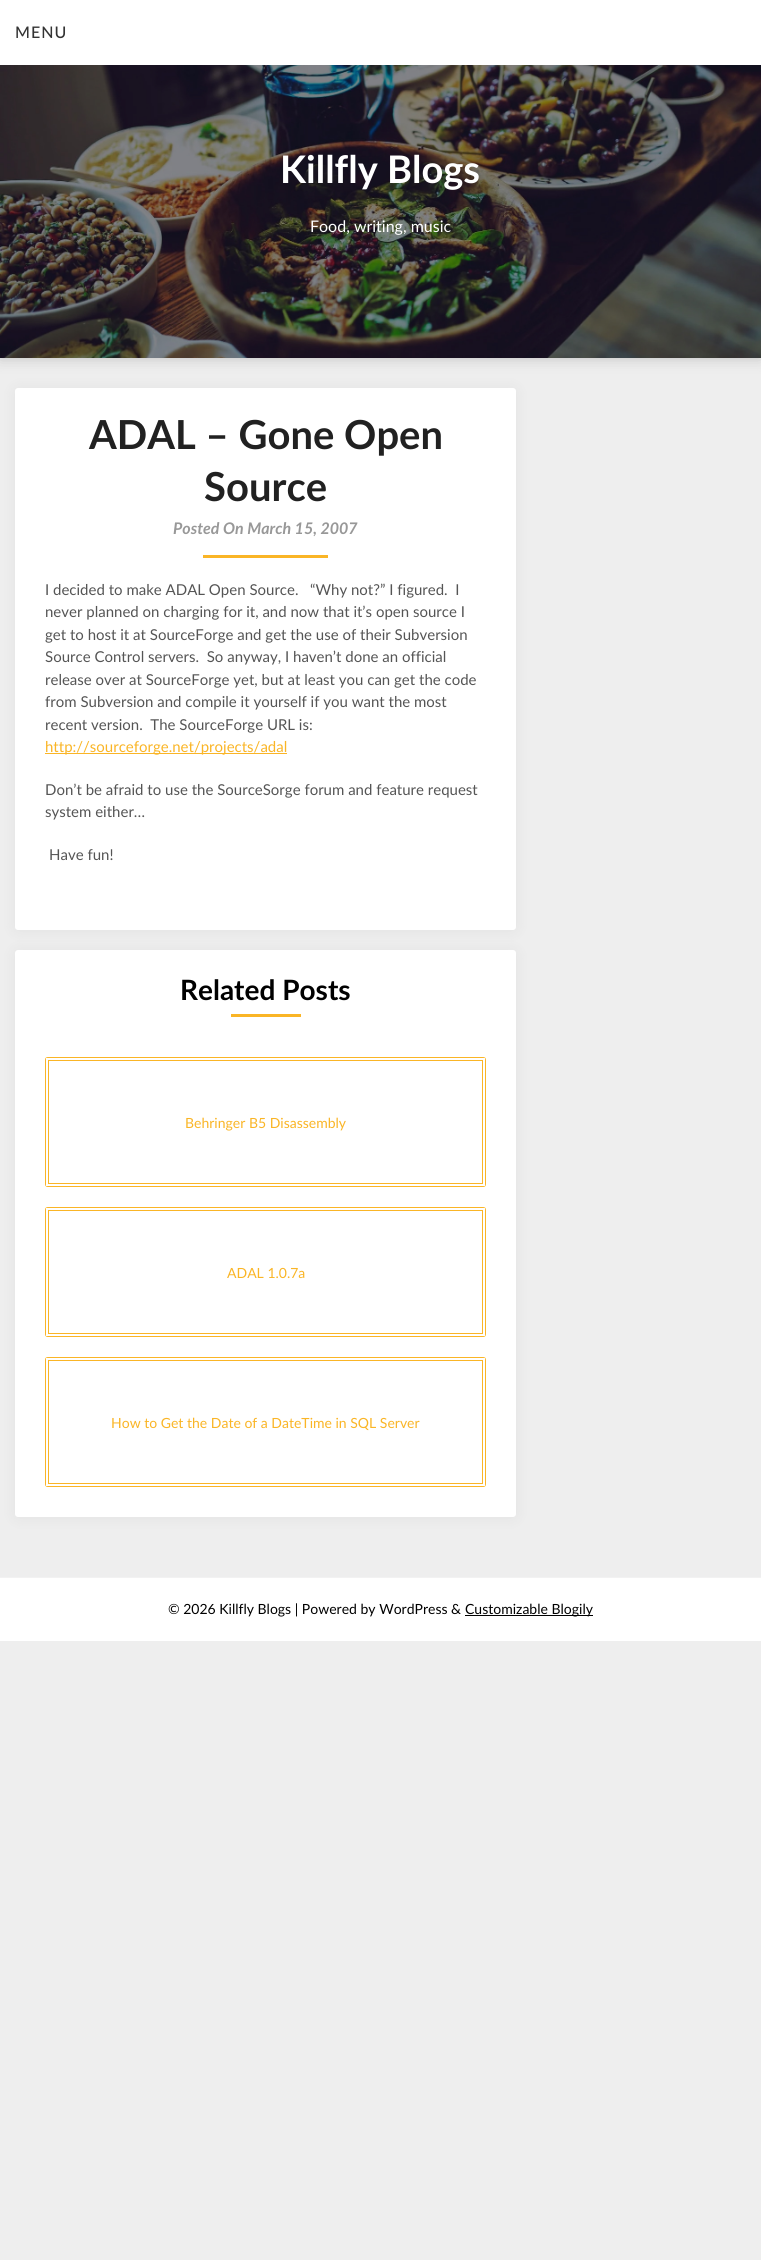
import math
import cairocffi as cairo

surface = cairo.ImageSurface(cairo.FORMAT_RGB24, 761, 2260)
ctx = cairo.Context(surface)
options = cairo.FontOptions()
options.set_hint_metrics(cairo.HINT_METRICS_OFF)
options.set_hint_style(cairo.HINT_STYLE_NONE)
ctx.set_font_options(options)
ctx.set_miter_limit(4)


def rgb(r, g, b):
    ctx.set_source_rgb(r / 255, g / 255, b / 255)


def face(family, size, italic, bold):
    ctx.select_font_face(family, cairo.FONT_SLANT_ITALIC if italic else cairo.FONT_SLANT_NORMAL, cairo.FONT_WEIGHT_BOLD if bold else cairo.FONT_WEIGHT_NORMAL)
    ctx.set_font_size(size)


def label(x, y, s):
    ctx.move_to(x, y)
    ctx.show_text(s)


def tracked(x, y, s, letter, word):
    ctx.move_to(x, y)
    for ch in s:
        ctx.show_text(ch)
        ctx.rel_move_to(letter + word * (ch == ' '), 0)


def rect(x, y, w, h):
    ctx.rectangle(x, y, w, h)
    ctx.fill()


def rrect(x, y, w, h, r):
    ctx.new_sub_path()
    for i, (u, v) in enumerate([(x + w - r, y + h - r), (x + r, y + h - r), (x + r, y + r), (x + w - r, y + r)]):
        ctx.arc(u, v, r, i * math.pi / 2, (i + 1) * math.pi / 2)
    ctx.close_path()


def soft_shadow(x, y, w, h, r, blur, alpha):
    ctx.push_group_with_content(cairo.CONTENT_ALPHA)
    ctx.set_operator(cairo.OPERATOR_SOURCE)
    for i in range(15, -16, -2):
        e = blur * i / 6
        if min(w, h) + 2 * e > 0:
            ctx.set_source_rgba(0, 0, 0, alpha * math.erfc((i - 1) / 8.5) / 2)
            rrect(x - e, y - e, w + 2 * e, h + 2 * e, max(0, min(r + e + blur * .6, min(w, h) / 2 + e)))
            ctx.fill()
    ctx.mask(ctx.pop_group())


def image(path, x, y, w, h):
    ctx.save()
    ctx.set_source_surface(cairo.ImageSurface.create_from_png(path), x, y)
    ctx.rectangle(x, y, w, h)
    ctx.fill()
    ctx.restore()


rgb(238, 238, 238)
ctx.paint()
rgb(0, 0, 0)
soft_shadow(0, 0, 761, 358, 0, 7.5, 0.2)
image('image0.png', 0, 65, 761, 293)
rgb(255, 255, 255)
rect(0, 0, 761, 65)
face('Lato Medium', 16, 0, 0)
rgb(51, 51, 51)
tracked(15, 38, 'MENU', 1, 0)
face('Lato', 38, 0, 1)
rgb(255, 255, 255)
label(280, 183, 'Killfly Blogs')
face('Lato', 16, 0, 0)
label(310, 232, 'Food, writing, music')
rgb(0, 0, 0)
soft_shadow(15, 389, 501, 542, 3, 7.5, 0.05)
rgb(255, 255, 255)
rrect(15, 388, 501, 542, 3)
ctx.fill()
face('Lato', 40, 0, 1)
rgb(33, 33, 33)
label(89, 449, 'ADAL – Gone Open')
label(204, 501, 'Source')
face('Lato', 16, 1, 1)
rgb(152, 152, 152)
label(173, 534, 'Posted On March 15, 2007')
rgb(250, 181, 38)
rect(203, 555, 125, 3)
face('Lato', 15, 0, 0)
rgb(85, 85, 85)
label(45, 595, 'I decided to make ADAL Open Source.   “Why not?” I figured.  I')
label(45, 617, 'never planned on charging for it, and now that it’s open source I')
label(45, 640, 'get to host it at SourceForge and get the use of their Subversion')
label(45, 662, 'Source Control servers.  So anyway, I haven’t done an official')
label(45, 685, 'release over at SourceForge yet, but at least you can get the code')
label(45, 707, 'from Subversion and compile it yourself if you want the most')
label(45, 730, 'recent version.  The SourceForge URL is:')
rgb(250, 181, 38)
rect(45, 753, 242, 1)
label(45, 752, 'http://sourceforge.net/projects/adal')
rgb(85, 85, 85)
label(45, 795, 'Don’t be afraid to use the SourceSorge forum and feature request')
label(45, 817, 'system either…')
label(49, 860, 'Have fun!')
rgb(0, 0, 0)
soft_shadow(15, 951, 501, 567, 3, 7.5, 0.05)
rgb(255, 255, 255)
rrect(15, 950, 501, 567, 3)
ctx.fill()
face('Lato', 28, 0, 1)
rgb(0, 0, 0)
label(180, 1000, 'Related Posts')
rgb(250, 181, 38)
rect(231, 1014, 70, 3)
ctx.set_fill_rule(cairo.FILL_RULE_EVEN_ODD)
ctx.new_path()
ctx.move_to(48, 1057)
ctx.curve_to(46, 1057, 45, 1058, 45, 1060)
ctx.line_to(45, 1184)
ctx.curve_to(45, 1186, 46, 1187, 48, 1187)
ctx.line_to(483, 1187)
ctx.curve_to(485, 1187, 486, 1186, 486, 1184)
ctx.line_to(486, 1060)
ctx.curve_to(486, 1058, 485, 1057, 483, 1057)
ctx.close_path()
ctx.move_to(46, 1058)
ctx.line_to(46, 1186)
ctx.line_to(485, 1186)
ctx.line_to(485, 1058)
ctx.close_path()
ctx.fill()
ctx.rectangle(48.5, 1060.5, 434, 123)
ctx.set_line_width(1)
ctx.stroke()
face('Lato', 14, 0, 0)
label(185, 1128, 'Behringer B5 Disassembly')
ctx.new_path()
ctx.move_to(48, 1207)
ctx.curve_to(46, 1207, 45, 1208, 45, 1210)
ctx.line_to(45, 1334)
ctx.curve_to(45, 1336, 46, 1337, 48, 1337)
ctx.line_to(483, 1337)
ctx.curve_to(485, 1337, 486, 1336, 486, 1334)
ctx.line_to(486, 1210)
ctx.curve_to(486, 1208, 485, 1207, 483, 1207)
ctx.close_path()
ctx.move_to(46, 1208)
ctx.line_to(46, 1336)
ctx.line_to(485, 1336)
ctx.line_to(485, 1208)
ctx.close_path()
ctx.fill()
ctx.rectangle(48.5, 1210.5, 434, 123)
ctx.stroke()
label(227, 1278, 'ADAL 1.0.7a')
ctx.new_path()
ctx.move_to(48, 1357)
ctx.curve_to(46, 1357, 45, 1358, 45, 1360)
ctx.line_to(45, 1484)
ctx.curve_to(45, 1486, 46, 1487, 48, 1487)
ctx.line_to(483, 1487)
ctx.curve_to(485, 1487, 486, 1486, 486, 1484)
ctx.line_to(486, 1360)
ctx.curve_to(486, 1358, 485, 1357, 483, 1357)
ctx.close_path()
ctx.move_to(46, 1358)
ctx.line_to(46, 1486)
ctx.line_to(485, 1486)
ctx.line_to(485, 1358)
ctx.close_path()
ctx.fill()
ctx.rectangle(48.5, 1360.5, 434, 123)
ctx.stroke()
label(111, 1428, 'How to Get the Date of a DateTime in SQL Server')
rgb(255, 255, 255)
rect(0, 1578, 761, 63)
rgb(242, 242, 242)
rect(0, 1577, 761, 1)
rgb(0, 0, 0)
label(168, 1614, '© 2026 Killfly Blogs | Powered by WordPress &')
rect(465, 1615, 128, 1)
label(465, 1614, 'Customizable Blogily')
surface.write_to_png('render.png')
